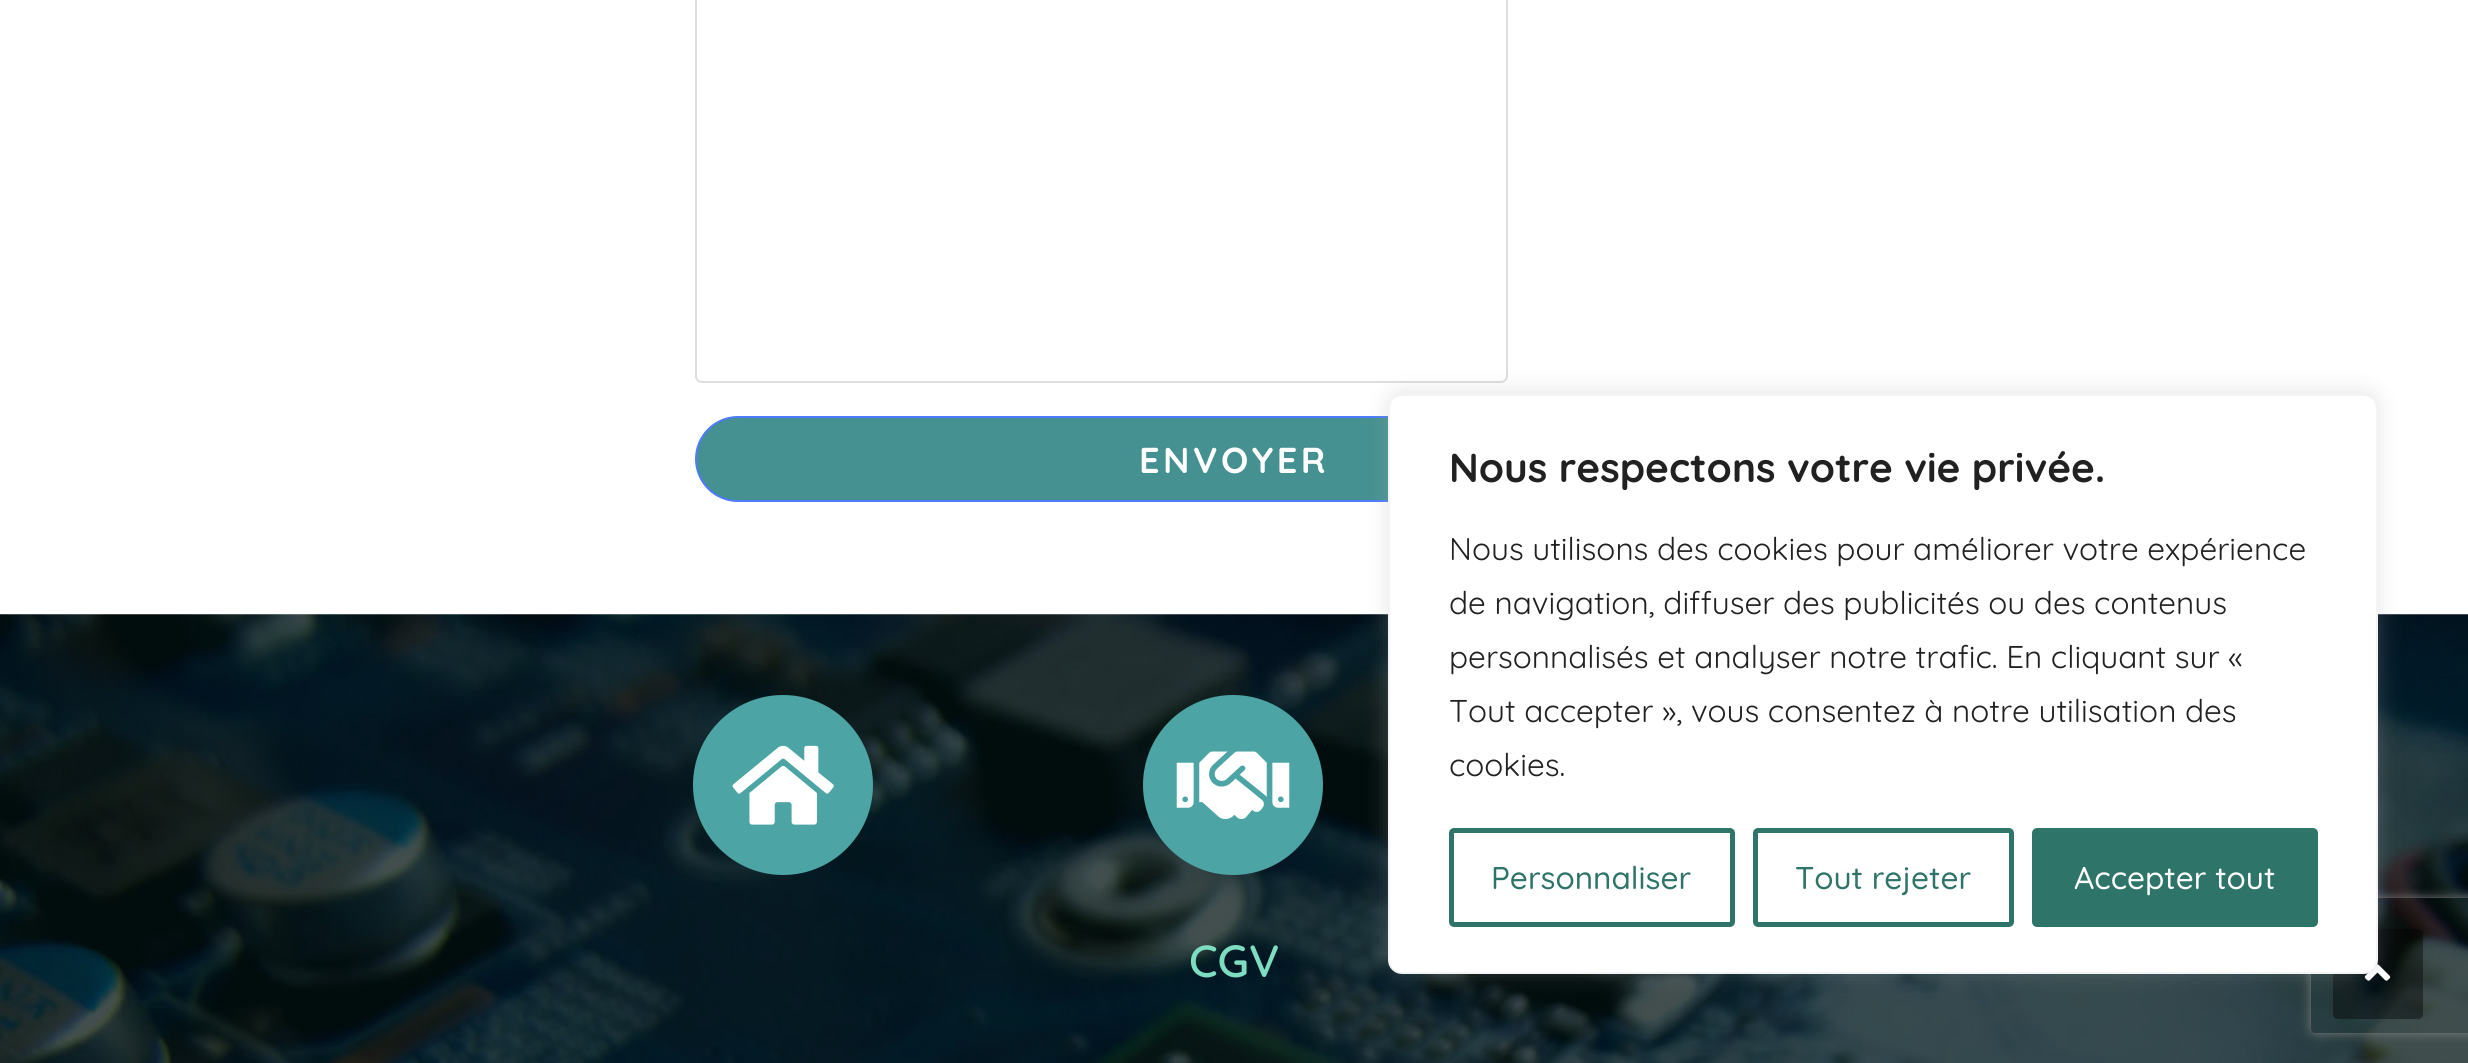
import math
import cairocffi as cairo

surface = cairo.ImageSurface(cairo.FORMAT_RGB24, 2468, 1063)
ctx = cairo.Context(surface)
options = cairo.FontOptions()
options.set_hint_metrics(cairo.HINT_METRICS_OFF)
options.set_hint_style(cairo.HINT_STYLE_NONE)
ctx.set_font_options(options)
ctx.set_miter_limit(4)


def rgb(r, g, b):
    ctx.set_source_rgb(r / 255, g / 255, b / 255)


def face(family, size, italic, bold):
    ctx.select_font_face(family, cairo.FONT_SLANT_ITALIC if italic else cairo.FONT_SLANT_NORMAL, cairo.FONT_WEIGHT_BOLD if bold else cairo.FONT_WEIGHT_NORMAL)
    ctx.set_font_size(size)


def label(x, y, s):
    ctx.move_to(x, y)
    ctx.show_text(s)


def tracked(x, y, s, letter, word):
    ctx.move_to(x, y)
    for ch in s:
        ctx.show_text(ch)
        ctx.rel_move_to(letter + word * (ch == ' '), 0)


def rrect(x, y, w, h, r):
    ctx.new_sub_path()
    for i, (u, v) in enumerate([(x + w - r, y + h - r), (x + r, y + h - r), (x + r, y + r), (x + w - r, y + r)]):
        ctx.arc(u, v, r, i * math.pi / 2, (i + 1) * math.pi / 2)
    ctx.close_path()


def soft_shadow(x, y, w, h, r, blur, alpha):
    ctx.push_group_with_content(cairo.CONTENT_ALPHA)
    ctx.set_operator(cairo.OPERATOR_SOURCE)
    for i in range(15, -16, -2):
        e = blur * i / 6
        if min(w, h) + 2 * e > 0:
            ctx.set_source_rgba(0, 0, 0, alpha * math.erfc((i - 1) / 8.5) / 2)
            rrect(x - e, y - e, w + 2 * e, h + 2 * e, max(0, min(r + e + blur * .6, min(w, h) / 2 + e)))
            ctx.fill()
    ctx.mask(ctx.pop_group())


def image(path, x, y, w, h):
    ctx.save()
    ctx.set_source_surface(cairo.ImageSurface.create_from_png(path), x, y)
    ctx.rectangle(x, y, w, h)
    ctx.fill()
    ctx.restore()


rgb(255, 255, 255)
ctx.paint()
rrect(696, -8, 811, 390, 6)
rgb(221, 221, 221)
ctx.stroke()
rgb(69, 144, 144)
rrect(696, 417, 1078, 84, 42)
ctx.fill_preserve()
rgb(77, 123, 251)
ctx.stroke()
face('Quicksand', 36, 0, 1)
rgb(255, 255, 255)
tracked(1139, 473, 'ENVOYER', 3.5, 0)
image('image0.png', 0, 614, 2468, 449)
rgb(77, 164, 164)
ctx.arc(783, 785, 90, 0, 2 * math.pi)
ctx.fill()
image('image1.png', 732, 745, 102, 80)
ctx.arc(1233, 785, 90, 0, 2 * math.pi)
ctx.fill()
image('image2.png', 1176, 751, 114, 69)
face('Quicksand SemiBold', 45, 0, 0)
rgb(124, 221, 192)
label(1189, 977, 'CGV')
ctx.save()
ctx.set_fill_rule(cairo.FILL_RULE_EVEN_ODD)
ctx.new_path()
ctx.move_to(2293, 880)
ctx.line_to(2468, 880)
ctx.line_to(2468, 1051)
ctx.line_to(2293, 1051)
ctx.close_path()
ctx.move_to(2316, 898)
ctx.line_to(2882, 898)
ctx.curve_to(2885, 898, 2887, 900, 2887, 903)
ctx.line_to(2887, 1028)
ctx.curve_to(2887, 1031, 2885, 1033, 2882, 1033)
ctx.line_to(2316, 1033)
ctx.curve_to(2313, 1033, 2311, 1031, 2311, 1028)
ctx.line_to(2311, 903)
ctx.curve_to(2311, 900, 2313, 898, 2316, 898)
ctx.close_path()
ctx.clip()
rgb(128, 128, 128)
soft_shadow(2311, 898, 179, 135, 5, 5.5, 1)
ctx.restore()
ctx.set_source_rgba(0, 0, 0, 0.4)
rrect(2333, 929, 90, 90, 5)
ctx.fill()
image('image3.png', 2364, 964, 27, 17)
rgb(172, 171, 171)
soft_shadow(1388, 392, 990, 580, 14, 11, 0.3)
rgb(255, 255, 255)
rrect(1389, 395, 988, 578, 13)
ctx.fill_preserve()
rgb(244, 244, 244)
ctx.stroke()
face('Quicksand', 40.5, 0, 1)
rgb(33, 33, 33)
label(1449, 482, 'Nous respectons votre vie privée.')
face('Quicksand', 31.5, 0, 0)
label(1449, 560, 'Nous utilisons des cookies pour améliorer votre expérience')
label(1449, 614, 'de navigation, diffuser des publicités ou des contenus')
label(1449, 668, 'personnalisés et analyser notre trafic. En cliquant sur «')
label(1449, 722, 'Tout accepter », vous consentez à notre utilisation des')
label(1449, 776, 'cookies.')
rrect(1451.5, 830.5, 281, 94, 2.5)
rgb(46, 116, 105)
ctx.set_line_width(5)
ctx.stroke()
face('Quicksand Medium', 31.5, 0, 0)
label(1491, 889, 'Personnaliser')
rrect(1755.5, 830.5, 256, 94, 2.5)
ctx.stroke()
label(1795, 889, 'Tout rejeter')
rrect(2034.5, 830.5, 281, 94, 2.5)
ctx.fill_preserve()
ctx.stroke()
rgb(255, 255, 255)
label(2074, 889, 'Accepter tout')
surface.write_to_png('render.png')
